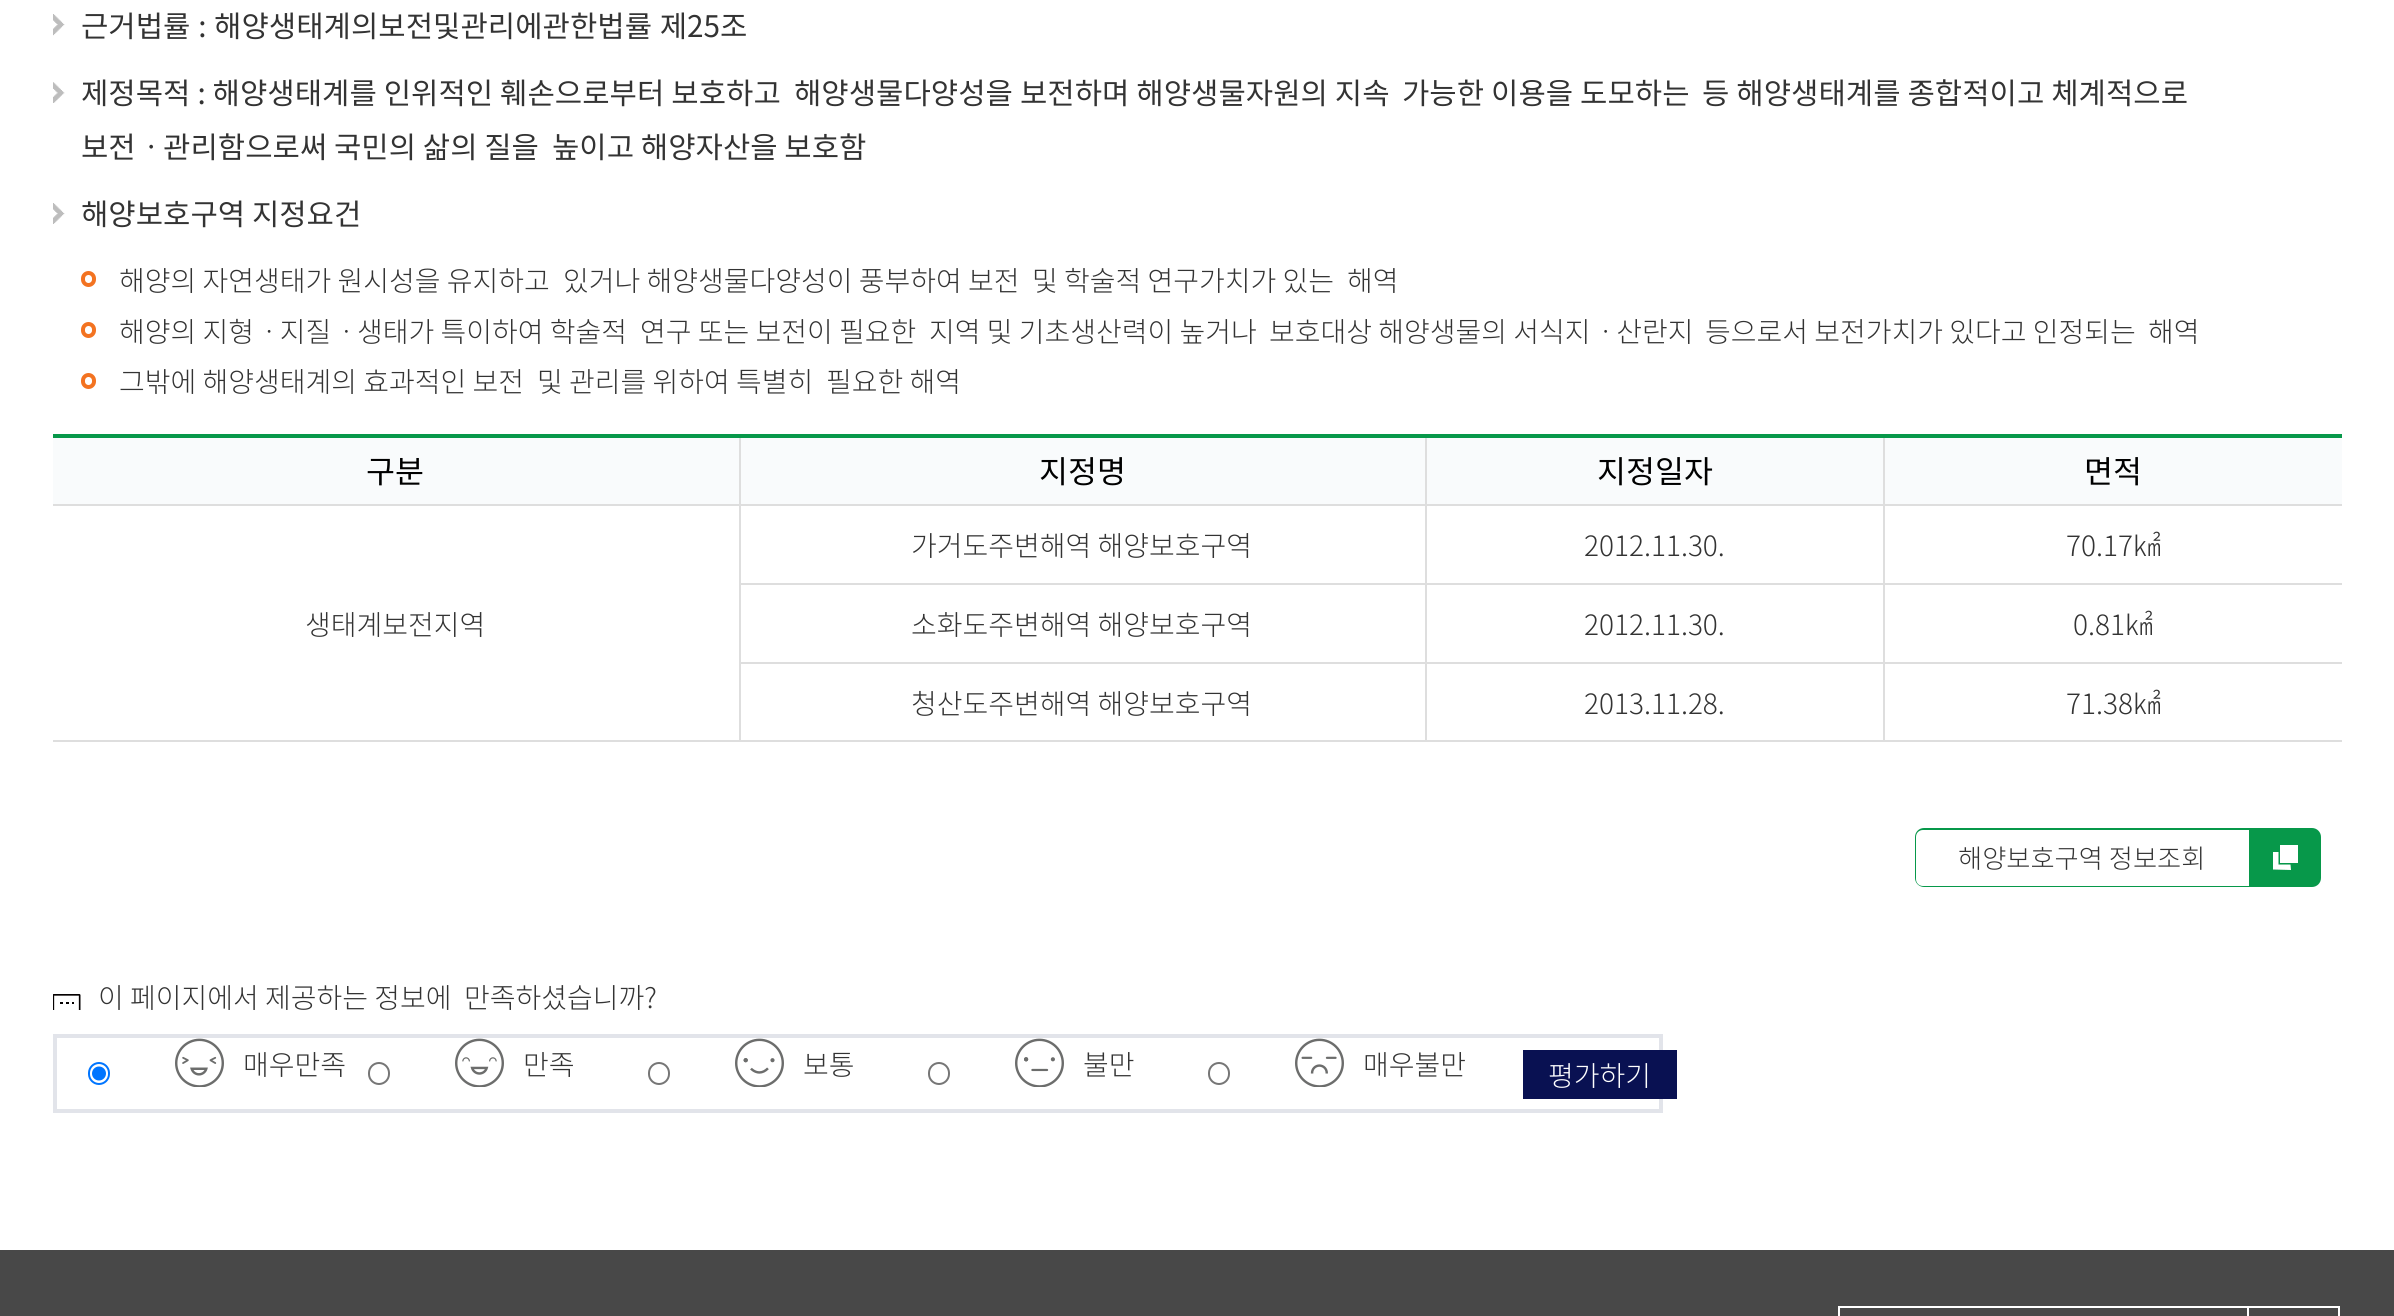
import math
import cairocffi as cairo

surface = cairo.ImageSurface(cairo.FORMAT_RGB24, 2394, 1316)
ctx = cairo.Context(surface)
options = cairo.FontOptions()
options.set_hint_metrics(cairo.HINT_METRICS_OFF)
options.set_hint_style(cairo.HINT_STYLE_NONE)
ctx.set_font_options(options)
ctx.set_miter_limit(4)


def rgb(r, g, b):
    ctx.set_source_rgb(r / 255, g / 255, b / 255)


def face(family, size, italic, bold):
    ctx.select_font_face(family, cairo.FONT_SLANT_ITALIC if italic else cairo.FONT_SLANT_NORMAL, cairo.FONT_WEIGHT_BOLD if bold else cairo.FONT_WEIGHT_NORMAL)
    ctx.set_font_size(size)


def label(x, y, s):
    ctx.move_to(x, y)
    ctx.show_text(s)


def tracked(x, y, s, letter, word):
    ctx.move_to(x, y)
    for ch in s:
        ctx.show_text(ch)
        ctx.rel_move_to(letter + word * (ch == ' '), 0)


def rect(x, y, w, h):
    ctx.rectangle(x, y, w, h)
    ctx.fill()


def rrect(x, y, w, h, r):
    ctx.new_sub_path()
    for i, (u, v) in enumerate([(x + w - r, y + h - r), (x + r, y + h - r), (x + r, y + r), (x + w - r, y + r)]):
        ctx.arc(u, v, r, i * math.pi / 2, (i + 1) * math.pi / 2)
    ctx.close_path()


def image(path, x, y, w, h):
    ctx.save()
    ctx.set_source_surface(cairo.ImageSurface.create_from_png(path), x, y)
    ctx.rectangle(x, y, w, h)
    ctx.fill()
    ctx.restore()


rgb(255, 255, 255)
ctx.paint()
image('image0.png', 53, 14, 12, 22)
face('Noto Sans KR', 29.75, 0, 0)
rgb(51, 51, 51)
tracked(81, 37, '근거법률 : 해양생태계의보전및관리에관한법률 제25조', 0, 1)
image('image1.png', 53, 82, 12, 21)
tracked(81, 104, '제정목적 : 해양생태계를 인위적인 훼손으로부터 보호하고', 0, 0.25)
tracked(794, 104, '해양생물다양성을 보전하며 해양생물자원의 지속', 0, 0.25)
tracked(1402, 104, '가능한 이용을 도모하는', 0, 0.25)
tracked(1702, 104, '등 해양생태계를 종합적이고 체계적으로', 0, 0.25)
label(81, 158, '보전ㆍ관리함으로써 국민의 삶의 질을')
label(552, 158, '높이고 해양자산을 보호함')
image('image2.png', 53, 203, 12, 21)
label(81, 225, '해양보호구역 지정요건')
rrect(83, 273, 11, 12, 5.5)
rgb(243, 115, 33)
ctx.set_line_width(4)
ctx.stroke()
face('Noto Sans KR Light', 28, 0, 0)
rgb(51, 51, 51)
label(119, 291, '해양의 자연생태가 원시성을 유지하고')
label(563, 291, '있거나 해양생물다양성이 풍부하여 보전')
label(1032, 291, '및 학술적 연구가치가 있는')
label(1347, 291, '해역')
rrect(83, 324, 11, 12, 5.5)
rgb(243, 115, 33)
ctx.stroke()
rgb(51, 51, 51)
label(119, 342, '해양의 지형ㆍ지질ㆍ생태가 특이하여 학술적')
label(640, 342, '연구 또는 보전이 필요한')
label(929, 342, '지역 및 기초생산력이 높거나')
label(1269, 342, '보호대상 해양생물의 서식지ㆍ산란지')
label(1705, 342, '등으로서 보전가치가 있다고 인정되는')
label(2148, 342, '해역')
rrect(83, 375, 11, 12, 5.5)
rgb(243, 115, 33)
ctx.stroke()
rgb(51, 51, 51)
label(119, 392, '그밖에 해양생태계의 효과적인 보전')
label(537, 392, '및 관리를 위하여 특별히')
label(826, 392, '필요한 해역')
rgb(222, 222, 222)
rect(1883, 740, 459, 2)
rect(1883, 662, 2, 80)
rect(1883, 662, 459, 2)
rect(1883, 583, 2, 80)
rect(1883, 583, 459, 2)
rect(1883, 504, 2, 81)
rect(1883, 504, 459, 2)
rect(1883, 434, 2, 72)
rect(1425, 740, 460, 2)
rect(1425, 662, 2, 80)
rect(1425, 662, 460, 2)
rect(1425, 583, 2, 80)
rect(1425, 583, 460, 2)
rect(1425, 504, 2, 81)
rect(1425, 504, 460, 2)
rect(1425, 434, 2, 72)
rect(739, 583, 687, 2)
rect(739, 662, 687, 2)
rect(739, 740, 687, 2)
rect(739, 504, 2, 238)
rect(739, 504, 687, 2)
rect(739, 434, 2, 72)
rgb(7, 152, 74)
rect(53, 434, 2289, 4)
rgb(249, 251, 252)
rect(53, 438, 686, 66)
rgb(222, 222, 222)
rect(53, 504, 687, 2)
face('Noto Sans KR', 31.5, 0, 0)
rgb(0, 0, 0)
label(366, 483, '구분')
rgb(249, 251, 252)
rect(741, 438, 684, 66)
rgb(0, 0, 0)
label(1039, 483, '지정명')
rgb(249, 251, 252)
rect(1427, 438, 456, 66)
rgb(0, 0, 0)
label(1597, 483, '지정일자')
rgb(249, 251, 252)
rect(1885, 438, 457, 66)
rgb(0, 0, 0)
label(2084, 483, '면적')
face('Noto Sans KR Light', 28, 0, 0)
rgb(51, 51, 51)
label(911, 556, '가거도주변해역 해양보호구역')
label(1584, 556, '2012.11.30.')
label(2066, 556, '70.17㎢')
rgb(222, 222, 222)
rect(53, 740, 687, 2)
rgb(51, 51, 51)
label(305, 635, '생태계보전지역')
label(911, 635, '소화도주변해역 해양보호구역')
label(1584, 635, '2012.11.30.')
label(2073, 635, '0.81㎢')
label(911, 714, '청산도주변해역 해양보호구역')
label(1584, 714, '2013.11.28.')
label(2066, 714, '71.38㎢')
rgb(7, 152, 74)
rrect(1916, 829, 404, 57, 8)
ctx.fill_preserve()
ctx.set_line_width(2)
ctx.stroke()
rgb(255, 255, 255)
ctx.new_path()
ctx.move_to(1923, 830)
ctx.line_to(2249, 830)
ctx.line_to(2249, 886)
ctx.line_to(1923, 886)
ctx.curve_to(1919, 886, 1916, 883, 1916, 879)
ctx.line_to(1916, 837)
ctx.curve_to(1916, 833, 1919, 830, 1923, 830)
ctx.close_path()
ctx.fill()
ctx.new_path()
ctx.move_to(2273, 869.5)
ctx.line_to(2273, 852)
ctx.line_to(2278.5, 852)
ctx.line_to(2278.5, 864.5)
ctx.line_to(2290.5, 864.5)
ctx.line_to(2291, 870)
ctx.close_path()
ctx.fill()
rect(2280, 845, 18, 18)
face('Noto Sans KR Light', 26.25, 0, 0)
rgb(51, 51, 51)
label(1958, 868, '해양보호구역 정보조회')
image('image3.png', 53, 994, 28, 16)
face('Noto Sans KR Light', 28, 0, 0)
label(98, 1008, '이 페이지에서 제공하는 정보에')
label(464, 1008, '만족하셨습니까?')
ctx.rectangle(55, 1036, 1606, 75)
rgb(226, 228, 234)
ctx.set_line_width(4)
ctx.stroke()
rrect(89, 1063, 20, 21, 10)
rgb(0, 117, 255)
ctx.set_line_width(2)
ctx.stroke()
ctx.arc(99, 1073.5, 7, 0, 2 * math.pi)
ctx.fill()
image('image4.png', 175, 1038, 49, 49)
rgb(51, 51, 51)
label(243, 1075, '매우만족')
rrect(369, 1063, 20, 21, 10)
rgb(118, 118, 118)
ctx.stroke()
image('image5.png', 455, 1038, 49, 49)
rgb(51, 51, 51)
label(523, 1075, '만족')
rrect(649, 1063, 20, 21, 10)
rgb(118, 118, 118)
ctx.stroke()
image('image6.png', 735, 1038, 49, 49)
rgb(51, 51, 51)
label(803, 1075, '보통')
rrect(929, 1063, 20, 21, 10)
rgb(118, 118, 118)
ctx.stroke()
image('image7.png', 1015, 1038, 49, 49)
rgb(51, 51, 51)
label(1083, 1075, '불만')
rrect(1209, 1063, 20, 21, 10)
rgb(118, 118, 118)
ctx.stroke()
image('image8.png', 1295, 1038, 49, 49)
rgb(51, 51, 51)
label(1363, 1075, '매우불만')
rgb(9, 17, 82)
rect(1523, 1050, 154, 49)
rgb(255, 255, 255)
label(1548, 1086, '평가하기')
rgb(72, 72, 72)
rect(0, 1250, 2394, 66)
ctx.rectangle(1839, 1307, 409, 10)
rgb(255, 255, 255)
ctx.stroke()
ctx.rectangle(2248, 1307, 91, 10)
ctx.stroke()
surface.write_to_png('render.png')
